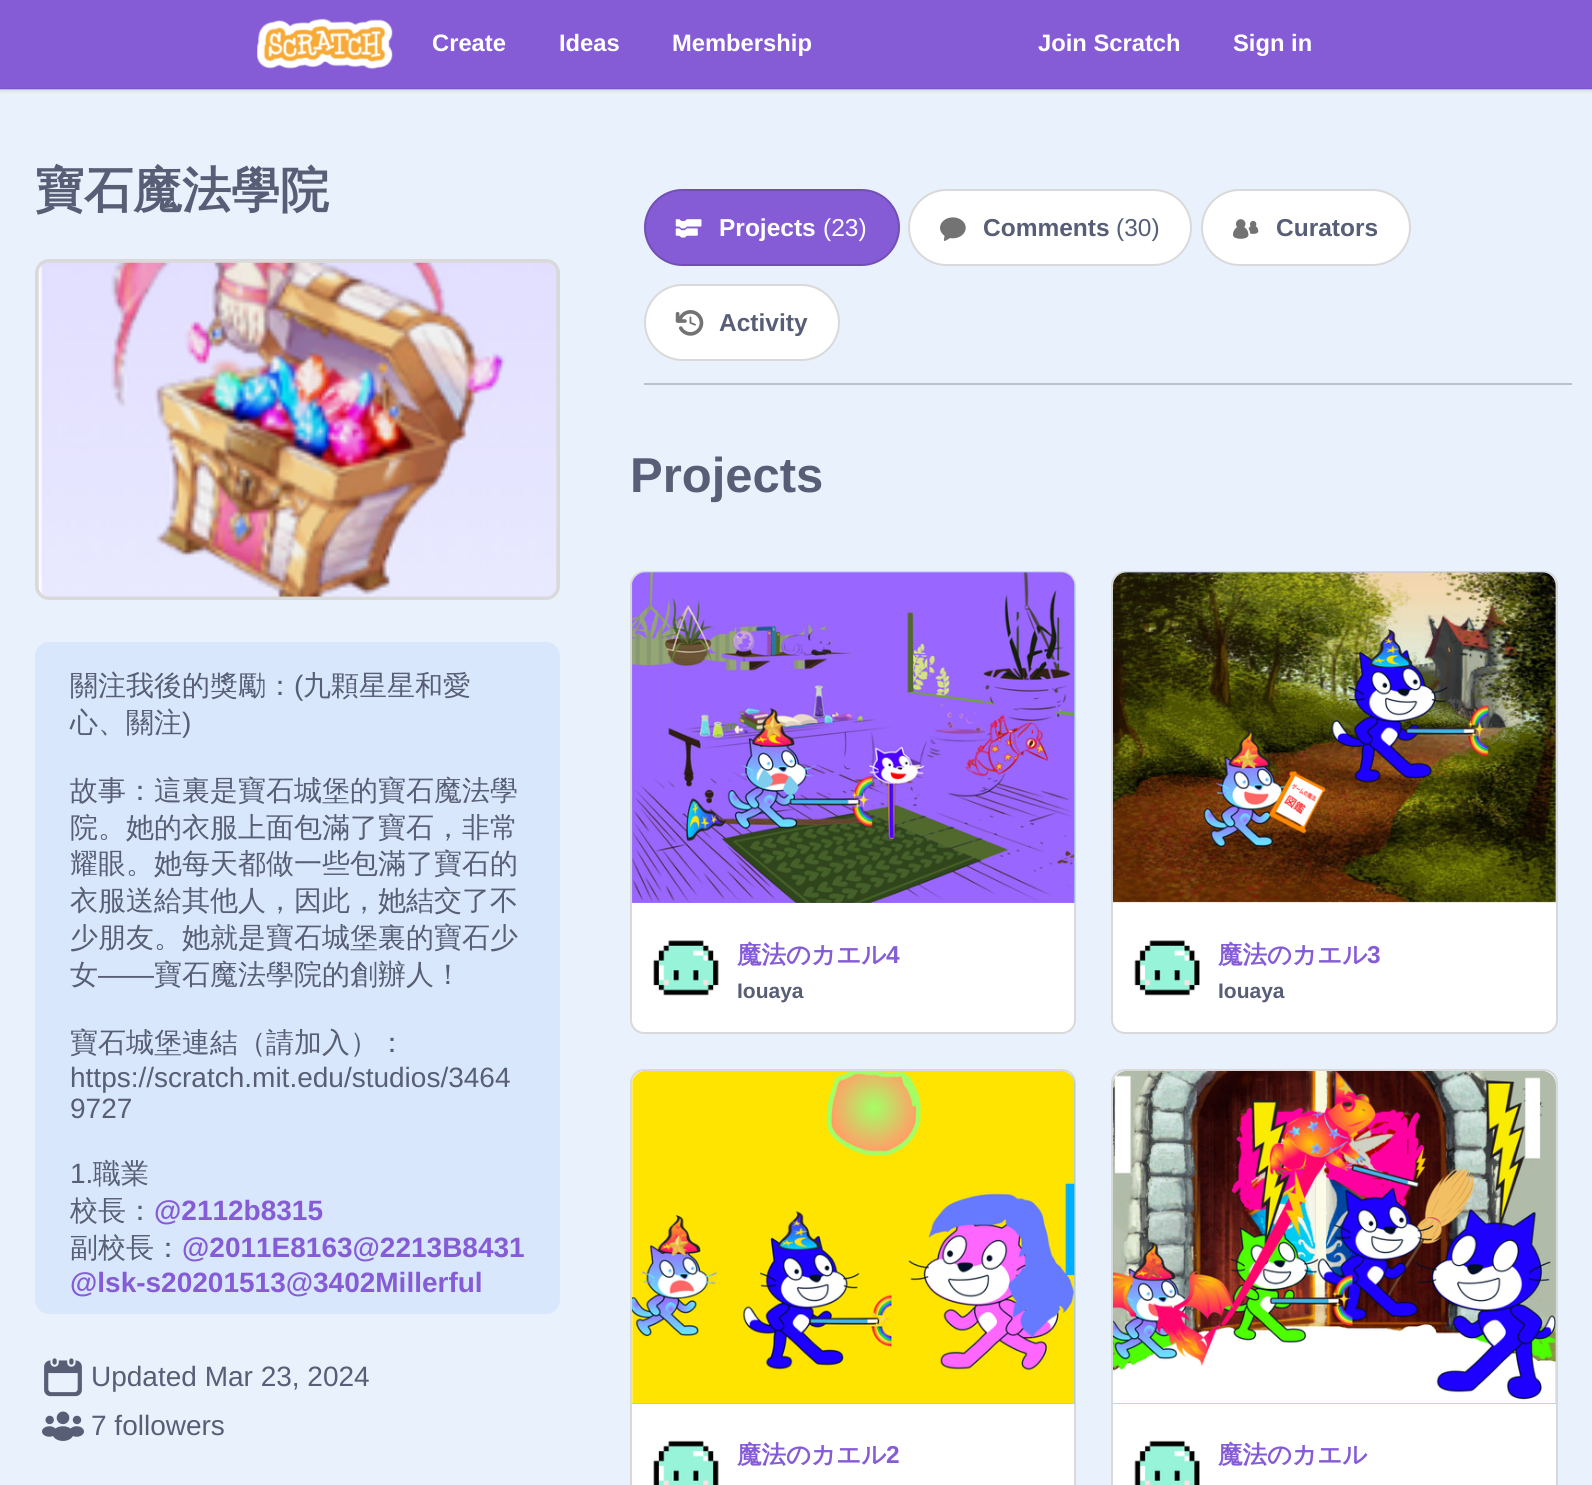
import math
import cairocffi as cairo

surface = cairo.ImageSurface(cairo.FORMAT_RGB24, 1592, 1485)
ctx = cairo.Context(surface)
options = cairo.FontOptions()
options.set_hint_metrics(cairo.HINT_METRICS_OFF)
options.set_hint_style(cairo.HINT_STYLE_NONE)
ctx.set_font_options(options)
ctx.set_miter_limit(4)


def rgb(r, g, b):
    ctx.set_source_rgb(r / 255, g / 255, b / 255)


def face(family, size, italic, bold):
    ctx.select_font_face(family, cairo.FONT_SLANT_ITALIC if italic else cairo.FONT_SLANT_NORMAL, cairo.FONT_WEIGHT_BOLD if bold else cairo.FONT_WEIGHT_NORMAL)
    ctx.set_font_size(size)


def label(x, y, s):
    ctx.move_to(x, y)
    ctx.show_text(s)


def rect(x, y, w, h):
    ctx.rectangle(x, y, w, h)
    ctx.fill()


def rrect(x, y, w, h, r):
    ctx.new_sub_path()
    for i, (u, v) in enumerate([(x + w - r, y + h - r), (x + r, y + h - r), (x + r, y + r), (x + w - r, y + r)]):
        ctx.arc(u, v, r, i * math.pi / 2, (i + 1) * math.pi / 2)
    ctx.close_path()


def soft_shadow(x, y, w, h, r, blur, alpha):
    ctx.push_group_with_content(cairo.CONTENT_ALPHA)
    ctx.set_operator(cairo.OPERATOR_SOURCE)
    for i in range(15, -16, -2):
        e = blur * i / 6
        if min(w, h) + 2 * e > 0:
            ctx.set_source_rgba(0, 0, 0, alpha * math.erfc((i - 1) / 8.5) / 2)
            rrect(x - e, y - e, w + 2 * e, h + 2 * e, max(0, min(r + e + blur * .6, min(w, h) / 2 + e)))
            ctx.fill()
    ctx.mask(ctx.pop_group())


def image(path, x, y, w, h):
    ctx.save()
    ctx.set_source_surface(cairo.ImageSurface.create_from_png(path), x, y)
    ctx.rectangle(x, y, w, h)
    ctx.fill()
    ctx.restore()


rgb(233, 241, 252)
ctx.paint()
rgb(0, 0, 0)
soft_shadow(0, 0, 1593, 89, 0, 2.5, 0.25)
rgb(133, 92, 214)
rect(0, 0, 1592, 89)
ctx.set_source_rgba(0, 0, 0, 0.1)
rect(0, 88, 1592, 2)
image('image0.png', 257, 18, 136, 51)
face('Liberation Sans', 23.75, 0, 1)
rgb(255, 255, 255)
label(432, 51, 'Create')
label(559, 51, 'Ideas')
label(672, 51, 'Membership')
label(1038, 51, 'Join Scratch')
label(1233, 51, 'Sign in')
face('WenQuanYi Zen Hei', 49, 0, 1)
rgb(87, 94, 117)
label(35, 207, '寶石魔法學院')
rgb(255, 255, 255)
rrect(35, 259, 525, 341, 14)
ctx.fill()
rrect(37, 261, 521, 337, 12)
ctx.set_source_rgba(0, 0, 0, 0.15)
ctx.set_line_width(4)
ctx.stroke()
image('image1.png', 38, 262, 519, 335)
rgb(217, 231, 253)
rrect(35, 642, 525, 672, 14)
ctx.fill()
face('WenQuanYi Zen Hei Medium', 28, 0, 0)
rgb(87, 94, 117)
label(70, 695, '關注我後的獎勵：')
face('Liberation Sans', 28, 0, 0)
label(294, 695, '(')
face('WenQuanYi Zen Hei Medium', 28, 0, 0)
label(303, 695, '九顆星星和愛')
label(70, 732, '心、關注')
face('Liberation Sans', 28, 0, 0)
label(182, 732, ')')
face('WenQuanYi Zen Hei Medium', 28, 0, 0)
label(70, 800, '故事：這裏是寶石城堡的寶石魔法學')
label(70, 837, '院。她的衣服上面包滿了寶石，非常')
label(70, 873, '耀眼。她每天都做一些包滿了寶石的')
label(70, 910, '衣服送給其他人，因此，她結交了不')
label(70, 947, '少朋友。她就是寶石城堡裏的寶石少')
label(70, 984, '女')
face('Liberation Sans', 28, 0, 0)
label(98, 984, '——')
face('WenQuanYi Zen Hei Medium', 28, 0, 0)
label(154, 984, '寶石魔法學院的創辦人！')
label(70, 1052, '寶石城堡連結（請加入）：')
face('Liberation Sans', 28, 0, 0)
label(70, 1087, 'https://scratch.mit.edu/studios/3464')
label(70, 1118, '9727')
label(70, 1183, '1.')
face('WenQuanYi Zen Hei Medium', 28, 0, 0)
label(93, 1183, '職業')
label(70, 1220, '校長：')
face('Liberation Sans', 28, 0, 1)
rgb(133, 92, 214)
label(154, 1220, '@2112b8315')
face('WenQuanYi Zen Hei Medium', 28, 0, 0)
rgb(87, 94, 117)
label(70, 1257, '副校長：')
face('Liberation Sans', 28, 0, 1)
rgb(133, 92, 214)
label(182, 1257, '@2011E8163@2213B8431')
label(70, 1292, '@lsk-s20201513@3402Millerful')
image('image2.png', 44, 1358, 38, 39)
face('Liberation Sans', 28, 0, 0)
rgb(87, 94, 117)
label(91, 1386, 'Updated Mar 23, 2024')
image('image3.png', 42, 1411, 42, 30)
label(91, 1435, '7 followers')
rgb(186, 193, 202)
rect(644, 383, 928, 2)
rgb(133, 92, 214)
rrect(644, 189, 256, 77, 38.5)
ctx.fill()
rrect(645, 190, 254, 75, 37.5)
ctx.set_source_rgba(0, 0, 0, 0.15)
ctx.set_line_width(2)
ctx.stroke()
image('image4.png', 675, 219, 27, 19)
face('Liberation Sans', 24.5, 0, 1)
rgb(255, 255, 255)
label(719, 236, 'Projects')
face('Liberation Sans', 24.5, 0, 0)
label(823, 236, '(23)')
rrect(908, 189, 284, 77, 38.5)
ctx.fill()
rrect(909, 190, 282, 75, 37.5)
ctx.set_source_rgba(0, 0, 0, 0.15)
ctx.stroke()
image('image5.png', 940, 217, 26, 24)
face('Liberation Sans', 24.5, 0, 1)
rgb(87, 94, 117)
label(983, 236, 'Comments')
face('Liberation Sans', 24.5, 0, 0)
label(1116, 236, '(30)')
rgb(255, 255, 255)
rrect(1201, 189, 210, 77, 38.5)
ctx.fill()
rrect(1202, 190, 208, 75, 37.5)
ctx.set_source_rgba(0, 0, 0, 0.15)
ctx.stroke()
image('image6.png', 1233, 219, 26, 20)
face('Liberation Sans', 24.5, 0, 1)
rgb(87, 94, 117)
label(1276, 236, 'Curators')
rgb(255, 255, 255)
rrect(644, 284, 196, 77, 38.5)
ctx.fill()
rrect(645, 285, 194, 75, 37.5)
ctx.set_source_rgba(0, 0, 0, 0.15)
ctx.stroke()
image('image7.png', 675, 310, 29, 26)
rgb(87, 94, 117)
label(719, 331, 'Activity')
face('Liberation Sans', 49, 0, 1)
label(630, 492, 'Projects')
rgb(255, 255, 255)
rrect(631, 572, 444, 461, 13)
ctx.fill_preserve()
rgb(217, 217, 217)
ctx.stroke()
rgb(160, 198, 252)
ctx.new_path()
ctx.move_to(646, 572)
ctx.line_to(1061, 572)
ctx.curve_to(1068.5, 572, 1075, 578.5, 1075, 586)
ctx.line_to(1075, 903)
ctx.line_to(632, 903)
ctx.line_to(632, 586)
ctx.curve_to(632, 578.5, 638.5, 572, 646, 572)
ctx.close_path()
ctx.fill()
image('image8.png', 631, 572, 444, 331)
image('image9.png', 653, 940, 66, 56)
face('WenQuanYi Zen Hei', 24.5, 0, 1)
rgb(133, 92, 214)
label(737, 963, '魔法のカエル')
face('Liberation Sans', 24.5, 0, 1)
label(886, 963, '4')
face('Liberation Sans', 21, 0, 1)
rgb(87, 94, 117)
label(737, 998, 'Iouaya')
rgb(255, 255, 255)
rrect(1112, 572, 445, 461, 13)
ctx.fill_preserve()
rgb(217, 217, 217)
ctx.stroke()
rgb(160, 198, 252)
ctx.new_path()
ctx.move_to(1127, 572)
ctx.line_to(1542, 572)
ctx.curve_to(1549.5, 572, 1556, 578.5, 1556, 586)
ctx.line_to(1556, 903)
ctx.line_to(1113, 903)
ctx.line_to(1113, 586)
ctx.curve_to(1113, 578.5, 1119.5, 572, 1127, 572)
ctx.close_path()
ctx.fill()
image('image10.png', 1113, 572, 443, 331)
image('image11.png', 1134, 940, 66, 56)
face('WenQuanYi Zen Hei', 24.5, 0, 1)
rgb(133, 92, 214)
label(1218, 963, '魔法のカエル')
face('Liberation Sans', 24.5, 0, 1)
label(1367, 963, '3')
face('Liberation Sans', 21, 0, 1)
rgb(87, 94, 117)
label(1218, 998, 'Iouaya')
rgb(255, 255, 255)
rrect(631, 1070, 444, 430, 13)
ctx.fill_preserve()
rgb(217, 217, 217)
ctx.stroke()
rgb(160, 198, 252)
ctx.new_path()
ctx.move_to(646, 1071)
ctx.line_to(1061, 1071)
ctx.curve_to(1068.5, 1071, 1075, 1077.5, 1075, 1085)
ctx.line_to(1075, 1404)
ctx.line_to(632, 1404)
ctx.line_to(632, 1085)
ctx.curve_to(632, 1077.5, 638.5, 1071, 646, 1071)
ctx.close_path()
ctx.fill()
image('image12.png', 631, 1071, 444, 333)
image('image13.png', 653, 1440, 66, 45)
face('WenQuanYi Zen Hei', 24.5, 0, 1)
rgb(133, 92, 214)
label(737, 1463, '魔法のカエル')
face('Liberation Sans', 24.5, 0, 1)
label(886, 1463, '2')
rgb(255, 255, 255)
rrect(1112, 1070, 445, 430, 13)
ctx.fill_preserve()
rgb(217, 217, 217)
ctx.stroke()
rgb(160, 198, 252)
ctx.new_path()
ctx.move_to(1127, 1071)
ctx.line_to(1542, 1071)
ctx.curve_to(1549.5, 1071, 1556, 1077.5, 1556, 1085)
ctx.line_to(1556, 1404)
ctx.line_to(1113, 1404)
ctx.line_to(1113, 1085)
ctx.curve_to(1113, 1077.5, 1119.5, 1071, 1127, 1071)
ctx.close_path()
ctx.fill()
image('image14.png', 1113, 1071, 443, 333)
image('image15.png', 1134, 1440, 66, 45)
face('WenQuanYi Zen Hei', 24.5, 0, 1)
rgb(133, 92, 214)
label(1218, 1463, '魔法のカエル')
surface.write_to_png('render.png')
